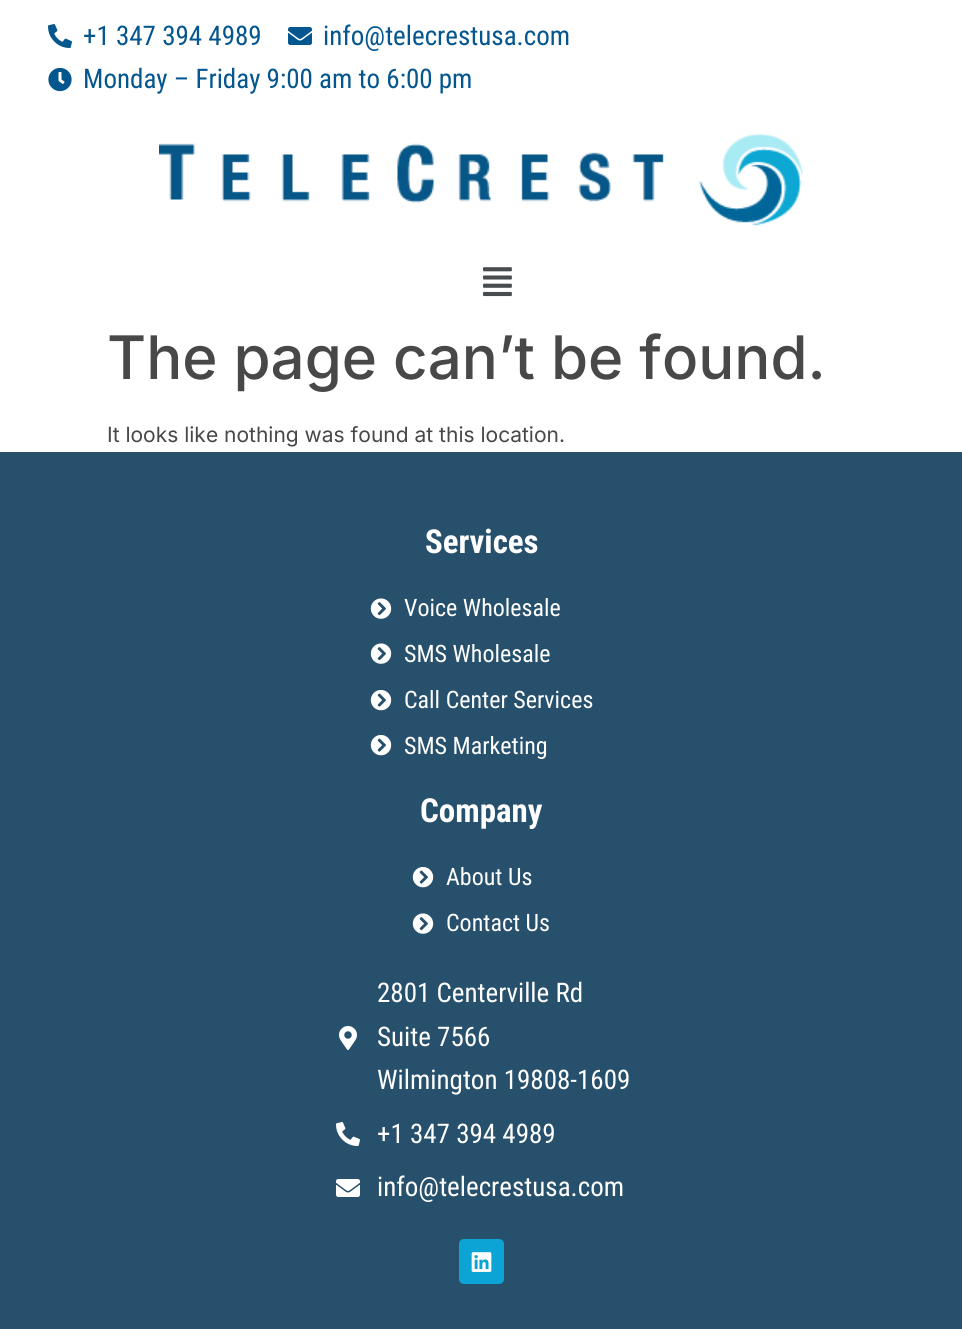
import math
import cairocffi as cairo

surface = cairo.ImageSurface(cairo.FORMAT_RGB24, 962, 1329)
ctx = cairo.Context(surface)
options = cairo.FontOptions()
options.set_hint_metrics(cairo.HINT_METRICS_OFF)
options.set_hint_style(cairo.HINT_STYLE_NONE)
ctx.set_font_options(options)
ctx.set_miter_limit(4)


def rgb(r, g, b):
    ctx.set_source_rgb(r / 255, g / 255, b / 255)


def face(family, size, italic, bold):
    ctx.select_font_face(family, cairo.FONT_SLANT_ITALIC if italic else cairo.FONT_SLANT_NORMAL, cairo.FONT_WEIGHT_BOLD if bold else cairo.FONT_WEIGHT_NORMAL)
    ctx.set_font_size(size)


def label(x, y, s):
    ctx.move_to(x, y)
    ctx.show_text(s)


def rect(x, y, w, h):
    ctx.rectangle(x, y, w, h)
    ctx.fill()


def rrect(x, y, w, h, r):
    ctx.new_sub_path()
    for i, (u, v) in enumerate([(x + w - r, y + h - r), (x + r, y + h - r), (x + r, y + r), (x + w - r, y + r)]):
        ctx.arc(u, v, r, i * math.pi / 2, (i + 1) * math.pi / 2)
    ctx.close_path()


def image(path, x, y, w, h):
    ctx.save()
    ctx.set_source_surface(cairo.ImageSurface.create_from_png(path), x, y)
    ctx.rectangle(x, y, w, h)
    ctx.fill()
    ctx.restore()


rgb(255, 255, 255)
ctx.paint()
image('image0.png', 48, 24, 24, 24)
face('Roboto Condensed', 27, 0, 0)
rgb(4, 86, 142)
label(83, 45, '+1 347 394 4989')
image('image1.png', 288, 27, 24, 18)
label(323, 45, 'info@telecrestusa.com')
image('image2.png', 48, 67, 24, 25)
label(83, 88, 'Monday – Friday 9:00 am to 6:00 pm')
image('image3.png', 159, 133, 644, 93)
image('image4.png', 483, 267, 29, 30)
face('Inter Medium', 60, 0, 0)
rgb(72, 72, 72)
label(107, 379, 'The page can’t be found.')
face('Inter', 21, 0, 0)
label(107, 442, 'It looks like nothing was found at this location.')
rgb(39, 80, 108)
rect(0, 452, 962, 877)
face('Roboto Condensed', 33, 0, 1)
rgb(255, 255, 255)
label(425, 553, 'Services')
image('image5.png', 370, 598, 22, 21)
face('Roboto Condensed', 24, 0, 0)
label(404, 616, 'Voice Wholesale')
image('image5.png', 370, 643, 22, 21)
label(404, 662, 'SMS Wholesale')
image('image6.png', 370, 690, 22, 21)
label(404, 708, 'Call Center Services')
image('image6.png', 370, 735, 22, 21)
label(404, 754, 'SMS Marketing')
face('Roboto Condensed', 33, 0, 1)
label(420, 822, 'Company')
image('image6.png', 412, 867, 22, 21)
face('Roboto Condensed', 24, 0, 0)
label(446, 885, 'About Us')
image('image5.png', 412, 913, 22, 21)
label(446, 931, 'Contact Us')
image('image7.png', 339, 1026, 18, 24)
face('Roboto Condensed', 27, 0, 0)
label(377, 1002, '2801 Centerville Rd')
label(377, 1046, 'Suite 7566')
label(377, 1089, 'Wilmington 19808-1609')
image('image8.png', 336, 1122, 24, 24)
label(377, 1143, '+1 347 394 4989')
image('image9.png', 336, 1179, 24, 18)
label(377, 1196, 'info@telecrestusa.com')
rgb(12, 164, 212)
rrect(459, 1239, 45, 45, 5)
ctx.fill()
image('image10.png', 471, 1252, 21, 20)
surface.write_to_png('render.png')
